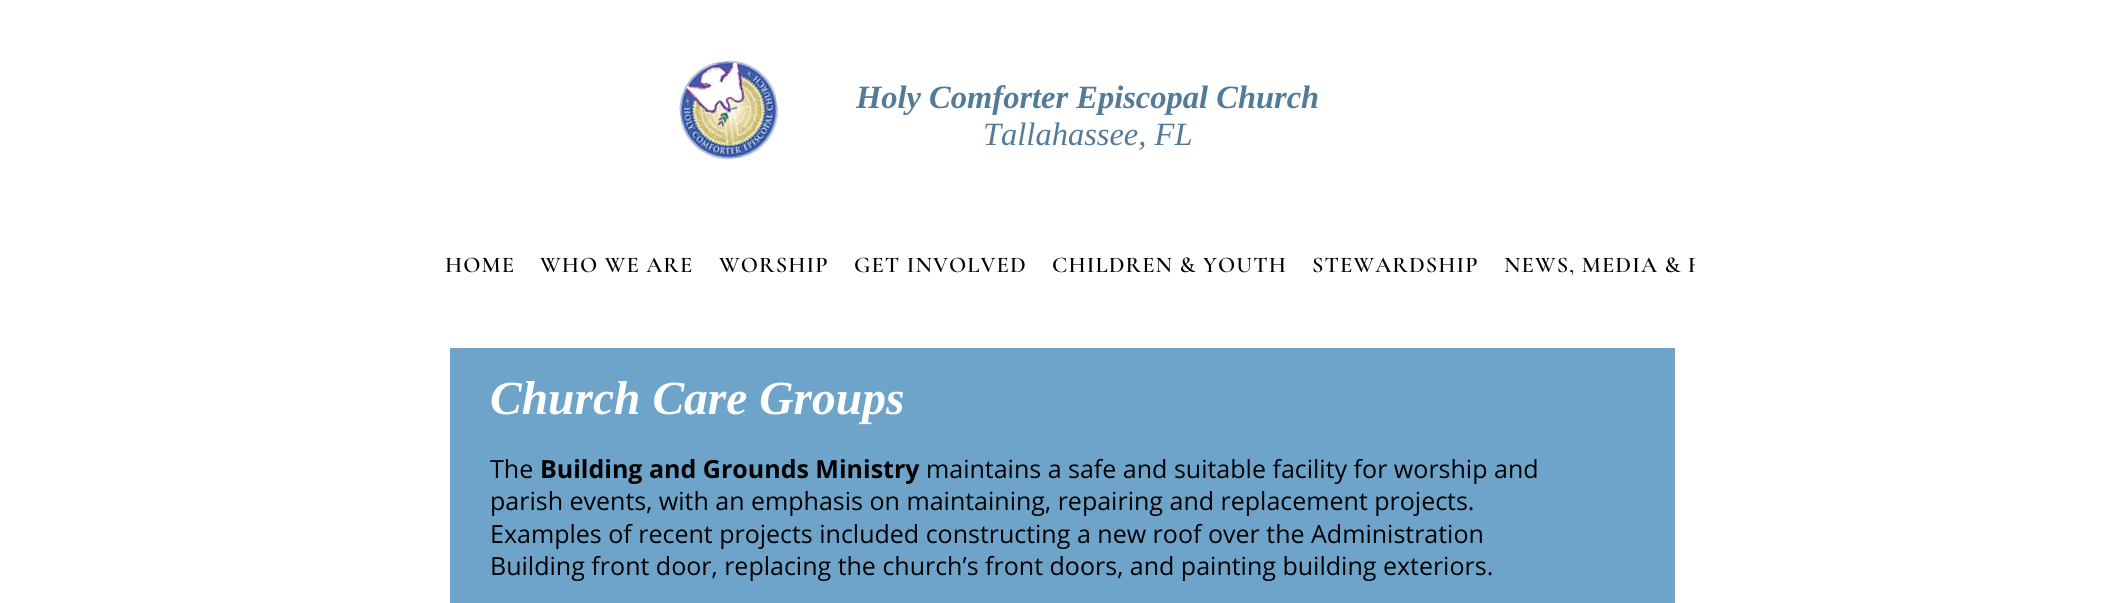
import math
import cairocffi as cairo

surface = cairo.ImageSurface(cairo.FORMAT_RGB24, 2124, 603)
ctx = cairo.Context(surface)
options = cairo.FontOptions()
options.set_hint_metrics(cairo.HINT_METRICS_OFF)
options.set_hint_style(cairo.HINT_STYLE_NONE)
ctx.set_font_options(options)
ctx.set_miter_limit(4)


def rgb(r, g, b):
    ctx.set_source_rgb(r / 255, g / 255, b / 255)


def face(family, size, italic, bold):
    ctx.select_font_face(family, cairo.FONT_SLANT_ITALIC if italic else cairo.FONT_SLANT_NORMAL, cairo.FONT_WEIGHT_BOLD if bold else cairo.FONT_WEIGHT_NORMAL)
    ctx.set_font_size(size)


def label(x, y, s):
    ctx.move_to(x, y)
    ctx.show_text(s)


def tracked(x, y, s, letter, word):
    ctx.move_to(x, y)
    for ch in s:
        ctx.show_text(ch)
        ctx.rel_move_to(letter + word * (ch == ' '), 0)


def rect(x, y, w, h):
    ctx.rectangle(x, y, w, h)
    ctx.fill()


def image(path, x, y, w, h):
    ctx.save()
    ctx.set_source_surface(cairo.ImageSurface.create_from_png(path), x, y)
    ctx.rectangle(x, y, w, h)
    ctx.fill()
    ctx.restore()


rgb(255, 255, 255)
ctx.paint()
image('image0.png', 679, 60, 100, 100)
face('Liberation Serif', 32.5, 1, 1)
rgb(83, 123, 152)
label(856, 108, 'Holy Comforter Episcopal Church')
face('Liberation Serif', 32.5, 1, 0)
label(983, 145, 'Tallahassee, FL')
face('Cormorant Garamond SemiBold', 22.5, 0, 0)
rgb(0, 0, 0)
tracked(445, 272, 'HOME', 1.1, 0)
tracked(540, 272, 'WHO WE ARE', 1.1, 0)
tracked(719, 272, 'WORSHIP', 1.1, 0)
tracked(854, 272, 'GET INVOLVED', 1.1, 0)
tracked(1052, 272, 'CHILDREN & YOUTH', 1.1, 0)
tracked(1312, 272, 'STEWARDSHIP', 1.1, 0)
ctx.save()
ctx.rectangle(433, 209, 1262, 111)
ctx.clip()
tracked(1504, 272, 'NEWS, MEDIA & R', 1.1, 0)
ctx.restore()
rgb(110, 164, 202)
rect(450, 348, 1225, 255)
face('Liberation Serif', 47.5, 1, 1)
rgb(255, 255, 255)
label(490, 414, 'Church Care Groups')
face('Open Sans', 25, 0, 0)
rgb(0, 0, 0)
label(490, 478, 'The')
face('Open Sans', 25, 0, 1)
label(540, 478, 'Building and Grounds Ministry')
face('Open Sans', 25, 0, 0)
label(926, 478, 'maintains a safe and suitable facility for worship and')
label(490, 510, 'parish events, with an emphasis on maintaining, repairing and replacement projects.')
label(490, 543, 'Examples of recent projects included constructing a new roof over the Administration')
label(490, 575, 'Building front door, replacing the church’s front doors, and painting building exteriors.')
surface.write_to_png('render.png')
